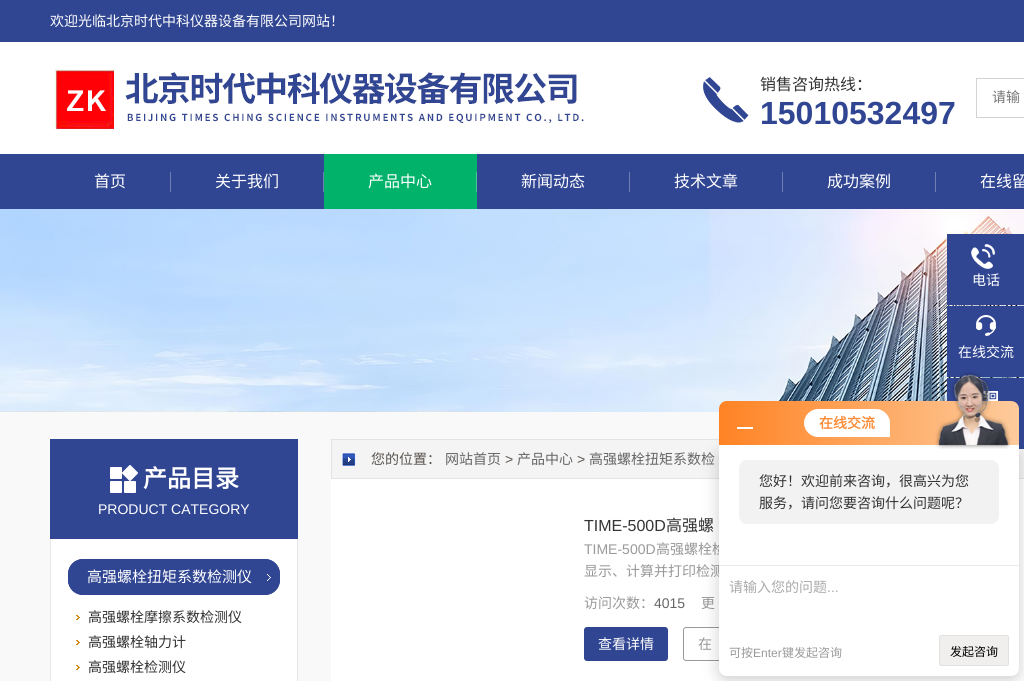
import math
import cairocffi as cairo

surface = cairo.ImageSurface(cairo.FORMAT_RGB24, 1024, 681)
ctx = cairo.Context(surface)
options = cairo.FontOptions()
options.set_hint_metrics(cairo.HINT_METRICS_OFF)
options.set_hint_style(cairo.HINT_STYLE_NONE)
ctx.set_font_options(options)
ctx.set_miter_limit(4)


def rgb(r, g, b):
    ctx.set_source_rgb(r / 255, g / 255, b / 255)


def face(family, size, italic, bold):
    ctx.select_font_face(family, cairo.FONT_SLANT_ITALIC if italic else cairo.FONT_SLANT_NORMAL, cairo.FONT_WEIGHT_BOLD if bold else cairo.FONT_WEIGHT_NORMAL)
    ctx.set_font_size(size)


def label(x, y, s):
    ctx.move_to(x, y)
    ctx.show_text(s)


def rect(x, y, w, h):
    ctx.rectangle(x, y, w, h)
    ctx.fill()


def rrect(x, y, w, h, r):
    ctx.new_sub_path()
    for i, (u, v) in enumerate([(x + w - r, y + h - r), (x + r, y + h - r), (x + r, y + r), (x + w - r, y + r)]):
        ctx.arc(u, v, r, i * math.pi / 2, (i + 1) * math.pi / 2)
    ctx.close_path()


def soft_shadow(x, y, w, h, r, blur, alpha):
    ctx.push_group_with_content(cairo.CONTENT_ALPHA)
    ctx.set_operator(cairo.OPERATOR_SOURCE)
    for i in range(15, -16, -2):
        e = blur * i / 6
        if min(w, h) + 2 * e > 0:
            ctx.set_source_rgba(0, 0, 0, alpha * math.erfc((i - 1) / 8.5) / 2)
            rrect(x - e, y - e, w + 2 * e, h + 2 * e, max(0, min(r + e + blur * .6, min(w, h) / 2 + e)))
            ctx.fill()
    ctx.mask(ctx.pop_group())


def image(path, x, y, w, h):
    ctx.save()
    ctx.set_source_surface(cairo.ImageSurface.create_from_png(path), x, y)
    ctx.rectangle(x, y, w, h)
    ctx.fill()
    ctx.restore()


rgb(255, 255, 255)
ctx.paint()
rgb(49, 70, 147)
rect(0, 0, 1024, 42)
face('Noto Sans CJK SC', 14, 0, 0)
rgb(255, 255, 255)
label(50, 26, '欢迎光临北京时代中科仪器设备有限公司网站！')
image('image0.png', 50, 67, 534, 62)
image('image1.png', 703, 77, 46, 46)
face('Noto Sans CJK SC', 16, 0, 0)
rgb(51, 51, 51)
label(760, 90, '销售咨询热线：')
face('Liberation Sans', 32, 0, 1)
rgb(49, 70, 147)
label(760, 124, '15010532497')
ctx.rectangle(976.5, 78.5, 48, 39)
rgb(211, 211, 211)
ctx.set_line_width(1)
ctx.stroke()
face('Noto Sans CJK SC', 14, 0, 0)
rgb(117, 117, 117)
label(992, 102, '请输')
rgb(49, 70, 147)
rect(0, 154, 1024, 55)
rgb(111, 126, 179)
rect(170, 172, 1, 20)
face('Noto Sans CJK SC', 16, 0, 0)
rgb(255, 255, 255)
label(94, 187, '首页')
rgb(111, 126, 179)
rect(323, 172, 1, 20)
rgb(255, 255, 255)
label(215, 187, '关于我们')
rgb(0, 178, 106)
rect(324, 154, 153, 55)
rgb(77, 201, 151)
rect(476, 172, 1, 20)
rgb(255, 255, 255)
label(368, 187, '产品中心')
rgb(111, 126, 179)
rect(629, 172, 1, 20)
rgb(255, 255, 255)
label(521, 187, '新闻动态')
rgb(111, 126, 179)
rect(782, 172, 1, 20)
rgb(255, 255, 255)
label(674, 187, '技术文章')
rgb(111, 126, 179)
rect(935, 172, 1, 20)
rgb(255, 255, 255)
label(827, 187, '成功案例')
label(980, 187, '在线留')
image('image2.png', 0, 209, 1024, 203)
rgb(49, 70, 147)
rect(947, 234, 77, 71)
image('image3.png', 971, 244, 24, 25)
face('Noto Sans CJK SC', 14, 0, 0)
rgb(255, 255, 255)
label(972, 285, '电话')
rgb(49, 70, 147)
rect(947, 306, 77, 71)
image('image4.png', 976, 315, 20, 21)
rgb(255, 255, 255)
label(958, 357, '在线交流')
rgb(249, 249, 249)
rect(0, 412, 719, 269)
rgb(244, 244, 244)
ctx.rectangle(331.5, 439.5, 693, 39)
ctx.fill_preserve()
rgb(228, 228, 228)
ctx.stroke()
rgb(49, 70, 147)
rect(947, 378, 77, 71)
image('image5.png', 981, 391, 17, 10)
rect(50, 439, 248, 100)
image('image6.png', 110, 465, 28, 28)
face('Noto Sans CJK SC', 24, 0, 1)
rgb(255, 255, 255)
label(143, 487, '产品目录')
face('Liberation Sans', 14, 0, 0)
label(98, 514, 'PRODUCT CATEGORY')
rect(51, 539, 246, 142)
rgb(230, 229, 229)
rect(297, 539, 1, 142)
rect(50, 539, 1, 142)
rgb(49, 70, 147)
rrect(68, 559, 212, 36, 15)
ctx.fill()
image('image7.png', 267, 574, 4, 7)
rrect(68.5, 559.5, 211, 35, 14.5)
ctx.stroke()
face('Noto Sans CJK SC', 15, 0, 0)
rgb(255, 255, 255)
label(87, 582, '高强螺栓扭矩系数检测仪')
image('image8.png', 76, 615, 4, 5)
face('Noto Sans CJK SC', 14, 0, 0)
rgb(51, 51, 51)
label(88, 622, '高强螺栓摩擦系数检测仪')
image('image8.png', 76, 640, 4, 5)
label(88, 647, '高强螺栓轴力计')
image('image8.png', 76, 665, 4, 5)
label(88, 672, '高强螺栓检测仪')
rgb(255, 255, 255)
rect(331, 479, 388, 202)
image('image9.png', 342, 453, 14, 13)
rgb(89, 84, 80)
label(371, 464, '您的位置：')
rgb(102, 102, 102)
label(445, 464, '网站首页')
face('Liberation Sans', 14, 0, 0)
rgb(89, 84, 80)
label(505, 464, '>')
face('Noto Sans CJK SC', 14, 0, 0)
rgb(102, 102, 102)
label(517, 464, '产品中心')
face('Liberation Sans', 14, 0, 0)
rgb(89, 84, 80)
label(577, 464, '>')
face('Noto Sans CJK SC', 14, 0, 0)
rgb(102, 102, 102)
label(589, 464, '高强螺栓扭矩系数检')
face('Liberation Sans', 16, 0, 0)
rgb(51, 51, 51)
label(584, 531, 'TIME-500D')
face('Noto Sans CJK SC', 16, 0, 0)
label(666, 531, '高强螺')
face('Liberation Sans', 14, 0, 0)
rgb(153, 153, 153)
label(584, 554, 'TIME-500D')
face('Noto Sans CJK SC', 14, 0, 0)
label(656, 554, '高强螺栓检')
label(584, 576, '显示、计算并打印检测')
label(584, 608, '访问次数：')
face('Liberation Sans', 14, 0, 0)
rgb(102, 102, 102)
label(654, 608, '4015')
face('Noto Sans CJK SC', 14, 0, 0)
rgb(153, 153, 153)
label(701, 608, '更')
rgb(49, 70, 147)
rrect(584, 627, 84, 34, 3)
ctx.fill()
rgb(255, 255, 255)
label(598, 649, '查看详情')
rrect(683.5, 627.5, 85, 33, 2.5)
rgb(152, 152, 152)
ctx.stroke()
rgb(153, 153, 153)
label(698, 649, '在')
rgb(0, 0, 0)
soft_shadow(719, 449, 300, 231, 8, 8, 0.2)
gradient = cairo.LinearGradient(719, 423, 1019, 423)
gradient.add_color_stop_rgba(0, 1, 0.514, 0.141, 1)
gradient.add_color_stop_rgba(1, 0.996, 0.796, 0.612, 1)
ctx.set_source(gradient)
ctx.new_path()
ctx.move_to(727, 401)
ctx.line_to(1011, 401)
ctx.curve_to(1015.5, 401, 1019, 404.5, 1019, 409)
ctx.line_to(1019, 445)
ctx.line_to(719, 445)
ctx.line_to(719, 409)
ctx.curve_to(719, 404.5, 722.5, 401, 727, 401)
ctx.close_path()
ctx.fill()
rgb(255, 255, 255)
rect(737, 427, 16, 2)
ctx.new_path()
ctx.move_to(818, 409)
ctx.line_to(876, 409)
ctx.curve_to(883.5, 409, 890, 415.5, 890, 423)
ctx.line_to(890, 437)
ctx.line_to(818, 437)
ctx.curve_to(810.5, 437, 804, 430.5, 804, 423)
ctx.curve_to(804, 415.5, 810.5, 409, 818, 409)
ctx.close_path()
ctx.fill()
face('Noto Sans CJK SC', 14, 0, 1)
rgb(251, 139, 54)
label(819, 428, '在线交流')
rgb(255, 255, 255)
ctx.new_path()
ctx.move_to(719, 445)
ctx.line_to(1019, 445)
ctx.line_to(1019, 668)
ctx.curve_to(1019, 672.5, 1015.5, 676, 1011, 676)
ctx.line_to(727, 676)
ctx.curve_to(722.5, 676, 719, 672.5, 719, 668)
ctx.close_path()
ctx.fill()
image('image10.png', 935, 372, 76, 77)
rgb(242, 242, 242)
rrect(739, 460, 260, 64, 8)
ctx.fill()
face('Noto Sans CJK SC', 14, 0, 0)
rgb(51, 51, 51)
label(759, 486, '您好！欢迎前来咨询，很高兴为您')
label(759, 508, '服务，请问您要咨询什么问题呢？')
rgb(234, 234, 234)
rect(719, 565, 300, 1)
rgb(170, 170, 170)
label(729, 592, '请输入您的问题')
face('Liberation Sans', 14, 0, 0)
label(827, 592, '...')
face('Noto Sans CJK SC', 12, 0, 0)
rgb(153, 153, 153)
label(729, 657, '可按')
face('Liberation Sans', 12, 0, 0)
label(753, 657, 'Enter')
face('Noto Sans CJK SC', 12, 0, 0)
label(782, 657, '键发起咨询')
rgb(240, 239, 237)
rrect(939.5, 635.5, 69, 30, 1.5)
ctx.fill_preserve()
rgb(226, 226, 226)
ctx.stroke()
rgb(0, 0, 0)
label(950, 656, '发起咨询')
surface.write_to_png('render.png')
